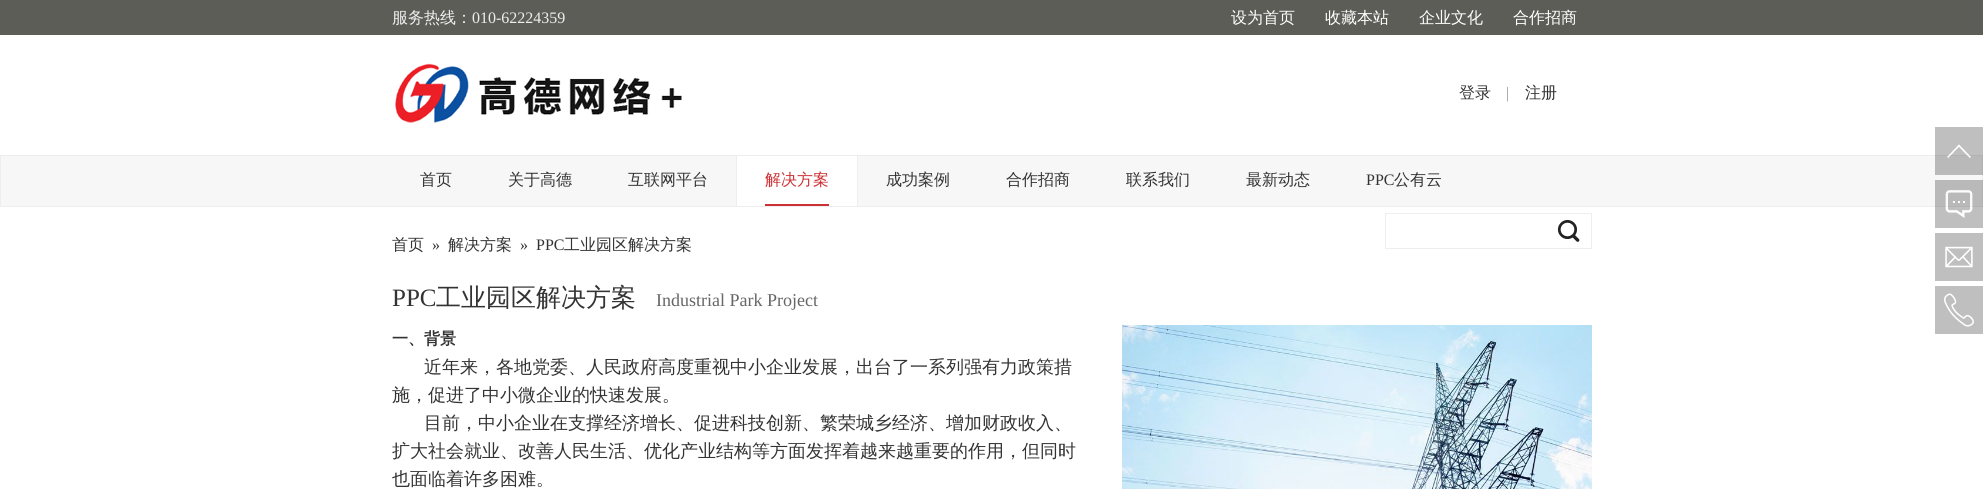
import math
import cairocffi as cairo

surface = cairo.ImageSurface(cairo.FORMAT_RGB24, 1983, 489)
ctx = cairo.Context(surface)
options = cairo.FontOptions()
options.set_hint_metrics(cairo.HINT_METRICS_OFF)
options.set_hint_style(cairo.HINT_STYLE_NONE)
ctx.set_font_options(options)
ctx.set_miter_limit(4)


def rgb(r, g, b):
    ctx.set_source_rgb(r / 255, g / 255, b / 255)


def face(family, size, italic, bold):
    ctx.select_font_face(family, cairo.FONT_SLANT_ITALIC if italic else cairo.FONT_SLANT_NORMAL, cairo.FONT_WEIGHT_BOLD if bold else cairo.FONT_WEIGHT_NORMAL)
    ctx.set_font_size(size)


def label(x, y, s):
    ctx.move_to(x, y)
    ctx.show_text(s)


def rect(x, y, w, h):
    ctx.rectangle(x, y, w, h)
    ctx.fill()


def image(path, x, y, w, h):
    ctx.save()
    ctx.set_source_surface(cairo.ImageSurface.create_from_png(path), x, y)
    ctx.rectangle(x, y, w, h)
    ctx.fill()
    ctx.restore()


rgb(255, 255, 255)
ctx.paint()
rgb(93, 93, 88)
rect(0, 0, 1983, 35)
face('WenQuanYi Zen Hei Medium', 16, 0, 0)
rgb(238, 238, 238)
label(392, 23, '服务热线：')
face('Liberation Serif', 16, 0, 0)
label(472, 23, '010-62224359')
face('WenQuanYi Zen Hei Medium', 16, 0, 0)
rgb(255, 255, 255)
label(1231, 23, '设为首页')
label(1325, 23, '收藏本站')
label(1419, 23, '企业文化')
label(1513, 23, '合作招商')
image('image0.png', 395, 63, 287, 60)
rgb(51, 51, 51)
label(1459, 98, '登录')
face('Liberation Serif', 16, 0, 0)
rgb(153, 153, 153)
label(1506, 98, '|')
face('WenQuanYi Zen Hei Medium', 16, 0, 0)
rgb(51, 51, 51)
label(1525, 98, '注册')
rgb(247, 247, 247)
ctx.rectangle(0.5, 155.5, 1982, 51)
ctx.fill_preserve()
rgb(238, 238, 238)
ctx.set_line_width(1)
ctx.stroke()
rgb(51, 51, 51)
label(420, 185, '首页')
label(508, 185, '关于高德')
label(628, 185, '互联网平台')
rgb(255, 255, 255)
rect(737, 156, 120, 50)
rgb(238, 238, 238)
rect(857, 156, 1, 50)
rect(736, 156, 1, 50)
rgb(203, 48, 52)
rect(765, 204, 64, 2)
label(765, 185, '解决方案')
rgb(51, 51, 51)
label(886, 185, '成功案例')
label(1006, 185, '合作招商')
label(1126, 185, '联系我们')
label(1246, 185, '最新动态')
face('Liberation Serif', 16, 0, 0)
label(1366, 185, 'PPC')
face('WenQuanYi Zen Hei Medium', 16, 0, 0)
label(1394, 185, '公有云')
ctx.rectangle(1385.5, 213.5, 206, 35)
rgb(238, 238, 238)
ctx.stroke()
image('image1.png', 1557, 220, 23, 22)
image('image2.png', 1935, 127, 48, 48)
image('image3.png', 1935, 180, 48, 48)
image('image4.png', 1935, 233, 48, 48)
image('image5.png', 1935, 286, 48, 48)
rgb(51, 51, 51)
label(392, 250, '首页')
face('Liberation Serif', 16, 0, 0)
label(432, 250, '»')
face('WenQuanYi Zen Hei Medium', 16, 0, 0)
label(448, 250, '解决方案')
face('Liberation Serif', 16, 0, 0)
label(520, 250, '»')
label(536, 250, 'PPC')
face('WenQuanYi Zen Hei Medium', 16, 0, 0)
label(564, 250, '工业园区解决方案')
face('Liberation Serif', 25, 0, 0)
label(392, 306, 'PPC')
face('WenQuanYi Zen Hei Medium', 25, 0, 0)
label(436, 306, '工业园区解决方案')
face('Liberation Serif', 18, 0, 0)
rgb(102, 102, 102)
label(656, 306, 'Industrial Park Project')
face('WenQuanYi Zen Hei', 16, 0, 1)
rgb(51, 51, 51)
label(392, 344, '一、背景')
face('WenQuanYi Zen Hei Medium', 18, 0, 0)
label(424, 373, '近年来，各地党委、人民政府高度重视中小企业发展，出台了一系列强有力政策措')
label(392, 401, '施，促进了中小微企业的快速发展。')
label(424, 429, '目前，中小企业在支撑经济增长、促进科技创新、繁荣城乡经济、增加财政收入、')
label(392, 457, '扩大社会就业、改善人民生活、优化产业结构等方面发挥着越来越重要的作用，但同时')
label(392, 485, '也面临着许多困难。')
image('image6.png', 1122, 325, 470, 164)
surface.write_to_png('render.png')
